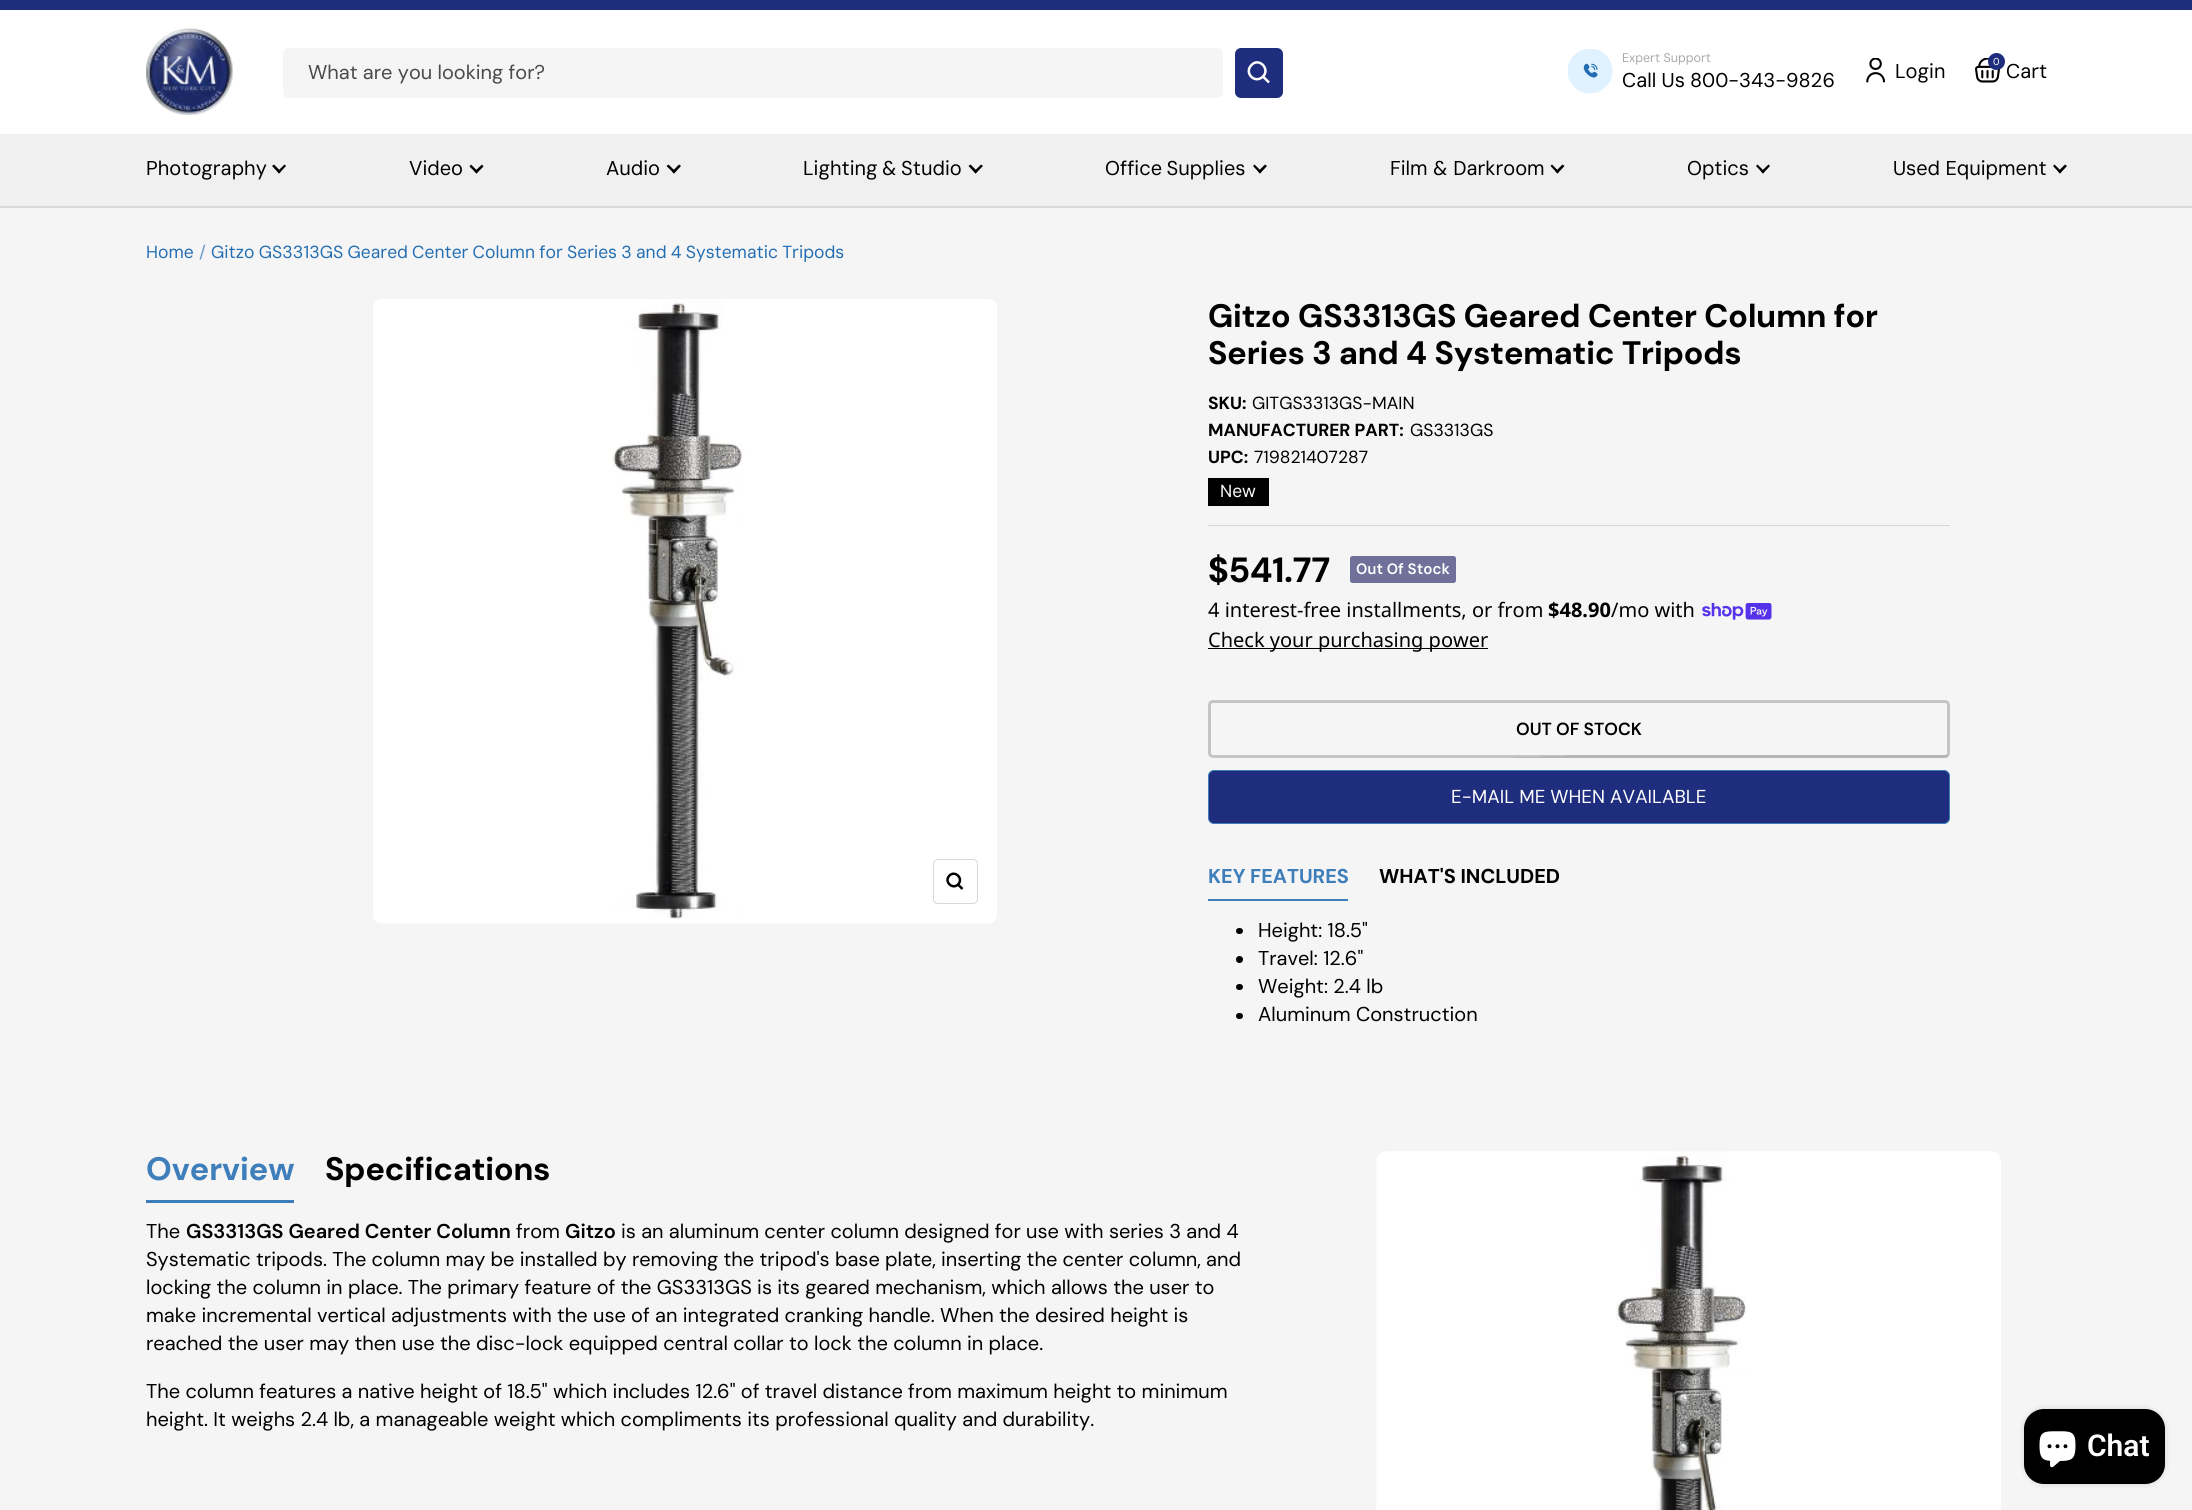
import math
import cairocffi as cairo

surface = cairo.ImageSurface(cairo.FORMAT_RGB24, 2192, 1510)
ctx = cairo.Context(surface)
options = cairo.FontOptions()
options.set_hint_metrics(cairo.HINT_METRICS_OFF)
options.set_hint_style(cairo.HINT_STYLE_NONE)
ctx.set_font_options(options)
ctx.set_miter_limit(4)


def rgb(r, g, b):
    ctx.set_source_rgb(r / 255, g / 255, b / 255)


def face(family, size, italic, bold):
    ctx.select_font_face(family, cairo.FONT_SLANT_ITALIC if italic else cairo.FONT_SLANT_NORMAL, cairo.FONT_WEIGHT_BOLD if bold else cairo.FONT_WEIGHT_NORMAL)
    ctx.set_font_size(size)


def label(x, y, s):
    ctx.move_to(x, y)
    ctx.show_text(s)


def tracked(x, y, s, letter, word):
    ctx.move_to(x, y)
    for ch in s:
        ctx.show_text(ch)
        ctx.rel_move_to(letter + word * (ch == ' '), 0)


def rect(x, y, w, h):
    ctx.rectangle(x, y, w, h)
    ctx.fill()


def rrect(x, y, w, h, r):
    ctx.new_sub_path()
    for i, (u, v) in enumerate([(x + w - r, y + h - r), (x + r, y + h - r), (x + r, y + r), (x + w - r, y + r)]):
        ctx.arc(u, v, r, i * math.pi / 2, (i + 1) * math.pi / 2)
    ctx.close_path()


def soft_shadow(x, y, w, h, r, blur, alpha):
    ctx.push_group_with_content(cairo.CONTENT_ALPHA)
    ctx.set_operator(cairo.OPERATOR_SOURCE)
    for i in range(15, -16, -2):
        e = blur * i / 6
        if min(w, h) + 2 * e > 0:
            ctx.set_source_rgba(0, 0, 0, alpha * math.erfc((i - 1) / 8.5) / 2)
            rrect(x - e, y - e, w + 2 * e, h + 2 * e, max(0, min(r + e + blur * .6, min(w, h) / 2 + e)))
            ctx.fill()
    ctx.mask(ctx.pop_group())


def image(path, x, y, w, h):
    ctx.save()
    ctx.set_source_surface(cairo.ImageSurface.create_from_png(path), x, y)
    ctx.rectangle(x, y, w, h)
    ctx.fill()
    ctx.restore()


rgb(245, 245, 245)
ctx.paint()
rgb(30, 45, 125)
rect(0, 0, 2192, 10)
rgb(217, 217, 217)
ctx.new_path()
ctx.move_to(0, 206)
ctx.line_to(0, 208)
ctx.line_to(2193, 208)
ctx.line_to(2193, 11)
ctx.line_to(2192, 11)
ctx.line_to(2192, 206)
ctx.close_path()
ctx.fill()
rgb(255, 255, 255)
rect(0, 10, 2192, 124)
image('image0.png', 146, 28, 87, 87)
rgb(245, 245, 245)
rrect(283, 48, 940, 50, 6)
ctx.fill()
face('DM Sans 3', 20, 0, 0)
rgb(74, 74, 74)
label(308, 79, 'What are you looking for?')
rgb(30, 45, 125)
rrect(1235, 48, 48, 50, 6)
ctx.fill()
ctx.new_path()
ctx.move_to(1263, 76.5)
ctx.curve_to(1270.5, 69, 1259, 57, 1251.5, 65)
ctx.curve_to(1243.5, 73, 1255, 84.5, 1263, 76.5)
ctx.close_path()
ctx.move_to(1263, 76.5)
ctx.line_to(1269, 82.5)
rgb(255, 255, 255)
ctx.set_line_width(2.5)
ctx.stroke()
image('image1.png', 1568, 49, 45, 45)
face('DM Sans', 12.5, 0, 0)
rgb(169, 169, 169)
label(1622, 62, 'Expert Support')
face('DM Sans', 20, 0, 0)
rgb(0, 0, 0)
label(1622, 87, 'Call Us')
label(1690, 87, '800-343-9826')
image('image2.png', 1866, 58, 19, 25)
label(1895, 78, 'Login')
image('image3.png', 1975, 58, 25, 25)
rgb(30, 45, 125)
ctx.arc(1996.5, 61.5, 8.5, 0, 2 * math.pi)
ctx.fill()
face('DM Sans', 10, 0, 0)
rgb(255, 255, 255)
label(1993, 65, '0')
face('DM Sans', 20, 0, 0)
rgb(0, 0, 0)
label(2006, 78, 'Cart')
rgb(240, 240, 240)
rect(0, 134, 2192, 72)
rgb(0, 0, 0)
label(146, 175, 'Photography')
ctx.new_path()
ctx.move_to(277.5, 171.5)
ctx.line_to(284.5, 164.5)
ctx.line_to(286, 166)
ctx.line_to(279, 173.5)
ctx.close_path()
ctx.fill()
ctx.new_path()
ctx.move_to(272, 166)
ctx.line_to(274, 164.5)
ctx.line_to(281, 171.5)
ctx.line_to(279, 173.5)
ctx.close_path()
ctx.fill()
label(409, 175, 'Video')
ctx.new_path()
ctx.move_to(474.5, 171.5)
ctx.line_to(482, 164.5)
ctx.line_to(483.5, 166.5)
ctx.line_to(476.5, 173.5)
ctx.close_path()
ctx.fill()
ctx.new_path()
ctx.move_to(469.5, 166.5)
ctx.line_to(471, 164.5)
ctx.line_to(478, 171.5)
ctx.line_to(476.5, 173.5)
ctx.close_path()
ctx.fill()
label(606, 175, 'Audio')
ctx.new_path()
ctx.move_to(672, 171.5)
ctx.line_to(679, 164.5)
ctx.line_to(681, 166)
ctx.line_to(674, 173.5)
ctx.close_path()
ctx.fill()
ctx.new_path()
ctx.move_to(666.5, 166)
ctx.line_to(668.5, 164.5)
ctx.line_to(675.5, 171.5)
ctx.line_to(674, 173.5)
ctx.close_path()
ctx.fill()
tracked(803, 175, 'Lighting & Studio', 0, -1)
ctx.new_path()
ctx.move_to(974, 171.5)
ctx.line_to(981, 164.5)
ctx.line_to(983, 166)
ctx.line_to(975.5, 173.5)
ctx.close_path()
ctx.fill()
ctx.new_path()
ctx.move_to(968.5, 166)
ctx.line_to(970.5, 164.5)
ctx.line_to(977.5, 171.5)
ctx.line_to(975.5, 173.5)
ctx.close_path()
ctx.fill()
tracked(1105, 175, 'Office Supplies', 0, -1)
ctx.new_path()
ctx.move_to(1258, 171.5)
ctx.line_to(1265, 164.5)
ctx.line_to(1267, 166)
ctx.line_to(1260, 173.5)
ctx.close_path()
ctx.fill()
ctx.new_path()
ctx.move_to(1253, 166)
ctx.line_to(1254.5, 164.5)
ctx.line_to(1261.5, 171.5)
ctx.line_to(1260, 173.5)
ctx.close_path()
ctx.fill()
label(1390, 175, 'Film & Darkroom')
ctx.new_path()
ctx.move_to(1555.5, 171.5)
ctx.line_to(1562.5, 164.5)
ctx.line_to(1564.5, 166)
ctx.line_to(1557.5, 173.5)
ctx.close_path()
ctx.fill()
ctx.new_path()
ctx.move_to(1550.5, 166)
ctx.line_to(1552, 164.5)
ctx.line_to(1559, 171.5)
ctx.line_to(1557.5, 173.5)
ctx.close_path()
ctx.fill()
label(1687, 175, 'Optics')
ctx.new_path()
ctx.move_to(1761, 171.5)
ctx.line_to(1768.5, 164.5)
ctx.line_to(1770, 166)
ctx.line_to(1763, 173.5)
ctx.close_path()
ctx.fill()
ctx.new_path()
ctx.move_to(1756, 166)
ctx.line_to(1757.5, 164.5)
ctx.line_to(1764.5, 171.5)
ctx.line_to(1763, 173.5)
ctx.close_path()
ctx.fill()
label(1893, 175, 'Used Equipment')
ctx.new_path()
ctx.move_to(2058, 171.5)
ctx.line_to(2065, 164.5)
ctx.line_to(2067, 166)
ctx.line_to(2060, 173.5)
ctx.close_path()
ctx.fill()
ctx.new_path()
ctx.move_to(2053, 166)
ctx.line_to(2054.5, 164.5)
ctx.line_to(2061.5, 171.5)
ctx.line_to(2060, 173.5)
ctx.close_path()
ctx.fill()
face('DM Sans', 17.5, 0, 0)
rgb(35, 110, 179)
label(146, 258, 'Home')
rgb(98, 151, 199)
label(199, 258, '/')
rgb(35, 110, 179)
tracked(211, 258, 'Gitzo GS3313GS Geared Center Column for Series 3 and 4 Systematic Tripods', 0, -0.5)
image('image4.png', 373, 299, 624, 625)
rrect(933.5, 859.5, 44, 44, 4.5)
rgb(217, 217, 217)
ctx.set_line_width(1)
ctx.stroke()
ctx.new_path()
ctx.move_to(958, 884.5)
ctx.curve_to(964, 878.5, 955, 870, 949.5, 875.5)
ctx.curve_to(943.5, 881.5, 952.5, 890, 958, 884.5)
ctx.close_path()
ctx.move_to(958, 884.5)
ctx.line_to(962.5, 889)
rgb(0, 0, 0)
ctx.set_line_width(2.5)
ctx.stroke()
face('DM Sans', 32.5, 0, 1)
label(1208, 327, 'Gitzo GS3313GS Geared Center Column for')
label(1208, 364, 'Series 3 and 4 Systematic Tripods')
rgb(214, 214, 214)
rect(1208, 525, 742, 1)
face('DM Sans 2', 17.5, 0, 1)
rgb(0, 0, 0)
label(1208, 409, 'SKU:')
face('DM Sans 2', 17.5, 0, 0)
label(1252, 409, 'GITGS3313GS-MAIN')
face('DM Sans 2', 17.5, 0, 1)
label(1208, 436, 'MANUFACTURER PART:')
face('DM Sans 2', 17.5, 0, 0)
label(1410, 436, 'GS3313GS')
face('DM Sans 2', 17.5, 0, 1)
label(1208, 463, 'UPC:')
face('DM Sans 2', 17.5, 0, 0)
label(1254, 463, '719821407287')
rect(1208, 478, 61, 28)
face('DM Sans', 17.5, 0, 0)
rgb(255, 255, 255)
label(1220, 497, 'New')
face('DM Sans 3', 35, 0, 1)
rgb(0, 0, 0)
label(1208, 582, '$541.77')
rgb(111, 113, 155)
rrect(1350, 556, 106, 27, 2.5)
ctx.fill()
face('DM Sans SemiBold', 15, 0, 0)
rgb(255, 255, 255)
label(1356, 574, 'Out Of Stock')
face('Noto Sans', 20, 0, 0)
rgb(0, 0, 0)
label(1208, 617, '4 interest-free installments, or from')
face('Noto Sans', 20, 0, 1)
label(1548, 617, '$48.90')
face('Noto Sans', 20, 0, 0)
label(1611, 617, '/mo with')
image('image5.png', 1702, 603, 70, 17)
rect(1208, 648, 280, 1)
label(1208, 647, 'Check your purchasing power')
ctx.save()
rrect(1208, 700, 742, 58, 5)
ctx.clip()
gradient = cairo.LinearGradient(1576, 742, 1581, 873)
gradient.add_color_stop_rgba(0, 0.961, 0.961, 0.961, 1)
gradient.add_color_stop_rgba(0.1, 0.961, 0.961, 0.961, 1)
gradient.add_color_stop_rgba(0.1, 0.894, 0.894, 0.894, 1)
gradient.add_color_stop_rgba(1, 0.894, 0.894, 0.894, 1)
ctx.set_source(gradient)
rect(1210, 755, 738, 3)
ctx.restore()
rrect(1209.5, 701.5, 739, 55, 3.5)
ctx.set_source_rgba(0, 0, 0, 0.2)
ctx.set_line_width(3)
ctx.stroke()
face('DM Sans 2 SemiBold', 17.5, 0, 0)
rgb(0, 0, 0)
label(1516, 735, 'OUT OF STOCK')
rgb(30, 45, 126)
rrect(1208.5, 770.5, 741, 53, 5.5)
ctx.fill_preserve()
rgb(62, 127, 187)
ctx.set_line_width(1)
ctx.stroke()
face('DM Sans', 18.75, 0, 0)
rgb(255, 255, 255)
label(1451, 803, 'E-MAIL ME WHEN AVAILABLE')
face('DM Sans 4', 20, 0, 1)
rgb(62, 127, 187)
label(1208, 883, 'KEY FEATURES')
rgb(0, 0, 0)
label(1379, 883, 'WHAT\'S INCLUDED')
rgb(62, 127, 187)
rect(1208, 899, 140, 2)
rgb(0, 0, 0)
rrect(1236, 928, 7, 6, 3)
ctx.fill()
face('DM Sans 3', 20, 0, 0)
label(1258, 937, 'Height: 18.5"')
ctx.new_path()
ctx.arc(1239.5, 959.5, 3.5, 0, 2 * math.pi)
ctx.fill()
label(1258, 965, 'Travel: 12.6"')
rrect(1236, 984, 7, 6, 3)
ctx.fill()
label(1258, 993, 'Weight: 2.4 lb')
rrect(1236, 1013, 7, 6, 3)
ctx.fill()
label(1258, 1021, 'Aluminum Construction')
face('DM Sans', 32.5, 0, 1)
rgb(62, 127, 187)
label(146, 1180, 'Overview')
rgb(0, 0, 0)
label(325, 1180, 'Specifications')
rgb(62, 127, 187)
rect(146, 1200, 148, 3)
face('DM Sans 3', 20, 0, 0)
rgb(0, 0, 0)
label(146, 1238, 'The')
face('DM Sans 3 SemiBold', 20, 0, 0)
label(186, 1238, 'GS3313GS Geared Center Column')
face('DM Sans 3', 20, 0, 0)
label(516, 1238, 'from')
face('DM Sans 3 SemiBold', 20, 0, 0)
label(565, 1238, 'Gitzo')
face('DM Sans 3', 20, 0, 0)
label(621, 1238, 'is an aluminum center column designed for use with series 3 and 4')
label(146, 1266, 'Systematic tripods. The column may be installed by removing the tripod\'s base plate, inserting the center column, and')
label(146, 1294, 'locking the column in place. The primary feature of the GS3313GS is its geared mechanism, which allows the user to')
label(146, 1322, 'make incremental vertical adjustments with the use of an integrated cranking handle. When the desired height is')
label(146, 1350, 'reached the user may then use the disc-lock equipped central collar to lock the column in place.')
label(146, 1398, 'The column features a native height of 18.5" which includes 12.6" of travel distance from maximum height to minimum')
label(146, 1426, 'height. It weighs 2.4 lb, a manageable weight which compliments its professional quality and durability.')
image('image6.png', 1376, 1151, 625, 359)
rgb(0, 0, 0)
soft_shadow(2024, 1409, 141, 75, 20, 3, 0.15)
rgb(0, 0, 0)
rrect(2024, 1409, 141, 75, 20)
ctx.fill()
image('image7.png', 2039, 1431, 37, 37)
face('Roboto SemiBold', 30, 0, 0)
rgb(255, 255, 255)
label(2087, 1456, 'Chat')
surface.write_to_png('render.png')
